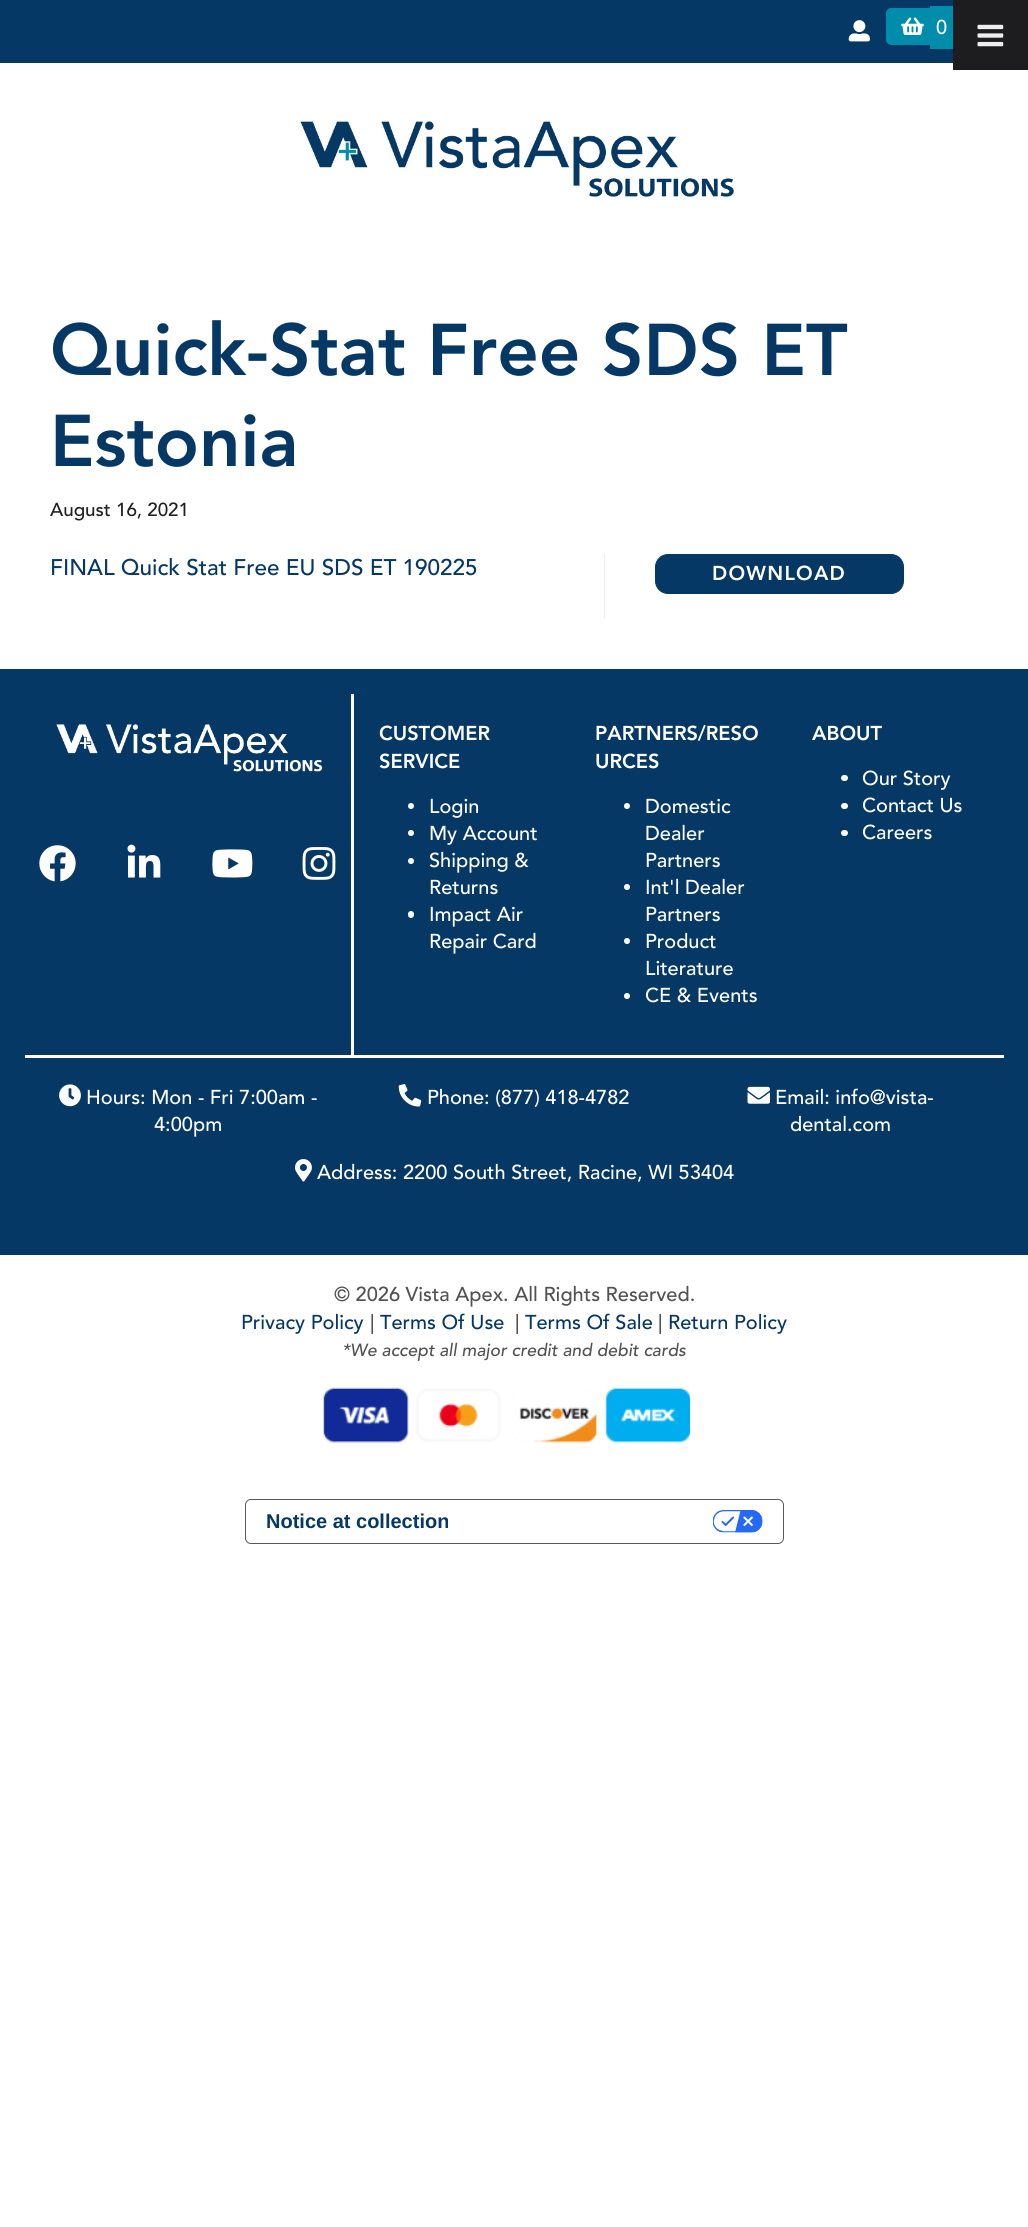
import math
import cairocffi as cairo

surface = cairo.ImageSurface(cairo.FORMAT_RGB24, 1028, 2227)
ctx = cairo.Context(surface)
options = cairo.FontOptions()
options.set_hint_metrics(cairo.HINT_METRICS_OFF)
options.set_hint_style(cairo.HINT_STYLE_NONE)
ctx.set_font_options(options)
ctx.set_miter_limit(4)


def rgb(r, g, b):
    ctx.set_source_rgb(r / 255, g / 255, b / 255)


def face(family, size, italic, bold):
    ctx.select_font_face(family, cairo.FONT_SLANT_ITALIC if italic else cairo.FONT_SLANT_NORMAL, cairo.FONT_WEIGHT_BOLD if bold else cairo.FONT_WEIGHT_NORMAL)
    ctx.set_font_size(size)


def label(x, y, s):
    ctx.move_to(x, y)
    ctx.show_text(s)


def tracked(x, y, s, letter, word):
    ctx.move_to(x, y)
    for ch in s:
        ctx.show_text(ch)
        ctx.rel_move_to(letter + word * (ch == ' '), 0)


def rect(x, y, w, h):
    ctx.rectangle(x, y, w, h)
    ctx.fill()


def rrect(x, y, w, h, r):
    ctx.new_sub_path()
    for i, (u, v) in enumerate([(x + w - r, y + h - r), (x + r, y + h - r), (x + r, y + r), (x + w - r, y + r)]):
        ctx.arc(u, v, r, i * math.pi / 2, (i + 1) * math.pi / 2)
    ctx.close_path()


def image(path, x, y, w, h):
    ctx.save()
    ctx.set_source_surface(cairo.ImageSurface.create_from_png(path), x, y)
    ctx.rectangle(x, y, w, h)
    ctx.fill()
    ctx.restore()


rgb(255, 255, 255)
ctx.paint()
rgb(6, 56, 101)
rect(0, 0, 953, 63)
image('image0.png', 848, 20, 22, 22)
rgb(0, 141, 171)
ctx.new_path()
ctx.move_to(892, 8)
ctx.line_to(930, 8)
ctx.line_to(930, 45)
ctx.line_to(892, 45)
ctx.curve_to(888.5, 45, 886, 42.5, 886, 39)
ctx.line_to(886, 14)
ctx.curve_to(886, 10.5, 888.5, 8, 892, 8)
ctx.close_path()
ctx.fill()
ctx.set_fill_rule(cairo.FILL_RULE_EVEN_ODD)
ctx.new_path()
ctx.move_to(892, 8)
ctx.line_to(930, 8)
ctx.line_to(930, 45)
ctx.line_to(892, 45)
ctx.curve_to(889, 45, 886, 42, 886, 39)
ctx.line_to(886, 14)
ctx.curve_to(886, 10, 889, 8, 892, 8)
ctx.close_path()
ctx.move_to(892, 10)
ctx.line_to(930, 10)
ctx.line_to(930, 42)
ctx.line_to(892, 42)
ctx.curve_to(890, 42, 889, 41, 889, 39)
ctx.line_to(889, 14)
ctx.curve_to(889, 12, 890, 10, 892, 10)
ctx.close_path()
ctx.fill()
rect(930, 6, 5, 43)
rect(935, 9, 18, 37)
ctx.new_path()
ctx.move_to(935, 6)
ctx.line_to(955, 6)
ctx.curve_to(958, 6, 961, 9, 961, 12)
ctx.line_to(961, 42)
ctx.curve_to(961, 46, 958, 49, 955, 49)
ctx.line_to(935, 49)
ctx.close_path()
ctx.move_to(935, 9)
ctx.line_to(955, 9)
ctx.curve_to(957, 9, 959, 10, 959, 12)
ctx.line_to(959, 42)
ctx.curve_to(959, 45, 957, 46, 955, 46)
ctx.line_to(935, 46)
ctx.close_path()
ctx.fill()
image('image1.png', 901, 17, 23, 18)
face('Avenir Medium', 20, 0, 0)
rgb(255, 255, 255)
label(936, 34, '0')
image('image2.png', 300, 121, 434, 76)
face('Avenir Black', 72.5, 0, 0)
rgb(6, 56, 101)
label(50, 375, 'Quick-Stat Free SDS ET')
label(50, 466, 'Estonia')
face('Avenir Medium', 18.75, 0, 0)
rgb(32, 32, 32)
label(50, 516, 'August 16, 2021')
face('Avenir Medium', 22.5, 0, 0)
rgb(6, 56, 101)
label(50, 575, 'FINAL Quick Stat Free EU SDS ET 190225')
rgb(238, 238, 238)
rect(604, 554, 1, 65)
rgb(6, 56, 101)
rrect(655.5, 554.5, 248, 39, 12.5)
ctx.fill_preserve()
ctx.set_line_width(1)
ctx.stroke()
face('Avenir Black', 20, 0, 0)
rgb(255, 255, 255)
tracked(712, 580, 'DOWNLOAD', 1.25, 0)
rgb(6, 56, 101)
rect(0, 669, 1028, 586)
rgb(255, 255, 255)
rect(25, 1055, 979, 3)
image('image3.png', 56, 724, 267, 48)
image('image4.png', 39, 845, 37, 37)
image('image5.png', 127, 844, 34, 34)
image('image6.png', 212, 849, 41, 29)
image('image7.png', 302, 847, 34, 33)
rect(351, 694, 3, 364)
label(379, 740, 'CUSTOMER')
label(379, 768, 'SERVICE')
ctx.new_path()
ctx.arc(411, 806, 3, 0, 2 * math.pi)
ctx.fill()
face('Avenir Medium', 20, 0, 0)
label(429, 813, 'Login')
ctx.new_path()
ctx.arc(411, 833, 3, 0, 2 * math.pi)
ctx.fill()
label(429, 840, 'My Account')
ctx.new_path()
ctx.arc(411, 861, 3, 0, 2 * math.pi)
ctx.fill()
label(429, 867, 'Shipping &')
label(429, 894, 'Returns')
rrect(408, 911, 6, 7, 3)
ctx.fill()
label(429, 921, 'Impact Air')
label(429, 948, 'Repair Card')
face('Avenir Black', 20, 0, 0)
label(595, 740, 'PARTNERS/RESO')
label(595, 768, 'URCES')
ctx.new_path()
ctx.arc(627, 806, 3, 0, 2 * math.pi)
ctx.fill()
face('Avenir Medium', 20, 0, 0)
label(645, 813, 'Domestic')
label(645, 840, 'Dealer')
label(645, 867, 'Partners')
ctx.new_path()
ctx.arc(627, 887, 3, 0, 2 * math.pi)
ctx.fill()
label(645, 894, 'Int\'l Dealer')
label(645, 921, 'Partners')
ctx.new_path()
ctx.arc(627, 941, 3, 0, 2 * math.pi)
ctx.fill()
label(645, 948, 'Product')
label(645, 975, 'Literature')
ctx.new_path()
ctx.arc(627, 996, 3, 0, 2 * math.pi)
ctx.fill()
label(645, 1002, 'CE & Events')
face('Avenir Black', 20, 0, 0)
label(812, 740, 'ABOUT')
rrect(841, 775, 7, 6, 3)
ctx.fill()
face('Avenir Medium', 20, 0, 0)
label(862, 785, 'Our Story')
rrect(841, 803, 7, 6, 3)
ctx.fill()
label(862, 812, 'Contact Us')
rrect(841, 830, 7, 6, 3)
ctx.fill()
label(862, 839, 'Careers')
image('image8.png', 59, 1084, 22, 23)
label(86, 1104, 'Hours: Mon - Fri 7:00am -')
label(154, 1131, '4:00pm')
image('image9.png', 398, 1084, 24, 23)
label(427, 1104, 'Phone: (877) 418-4782')
image('image10.png', 747, 1086, 23, 18)
label(775, 1104, 'Email: info@vista-')
label(790, 1131, 'dental.com')
image('image11.png', 295, 1159, 17, 23)
label(317, 1179, 'Address: 2200 South Street, Racine, WI 53404')
rgb(82, 82, 82)
label(334, 1301, '© 2026 Vista Apex. All Rights Reserved.')
rgb(6, 56, 101)
label(241, 1329, 'Privacy Policy')
rgb(82, 82, 82)
label(370, 1329, '|')
rgb(6, 56, 101)
label(380, 1329, 'Terms Of Use')
rgb(82, 82, 82)
label(515, 1329, '|')
rgb(6, 56, 101)
label(525, 1329, 'Terms Of Sale')
rgb(82, 82, 82)
label(658, 1329, '|')
rgb(6, 56, 101)
label(668, 1329, 'Return Policy')
face('Avenir Medium', 17.5, 1, 0)
rgb(82, 82, 82)
label(342, 1356, '*We accept all major credit and debit cards')
image('image12.png', 323, 1387, 367, 56)
rgb(29, 29, 32)
rect(953, 0, 75, 70)
image('image13.png', 977, 24, 27, 23)
rrect(245.5, 1499.5, 538, 44, 5.5)
rgb(89, 89, 89)
ctx.stroke()
face('Liberation Sans', 20, 0, 1)
rgb(6, 56, 101)
label(266, 1528, 'Notice at collection')
image('image14.png', 713, 1510, 50, 23)
surface.write_to_png('render.png')
